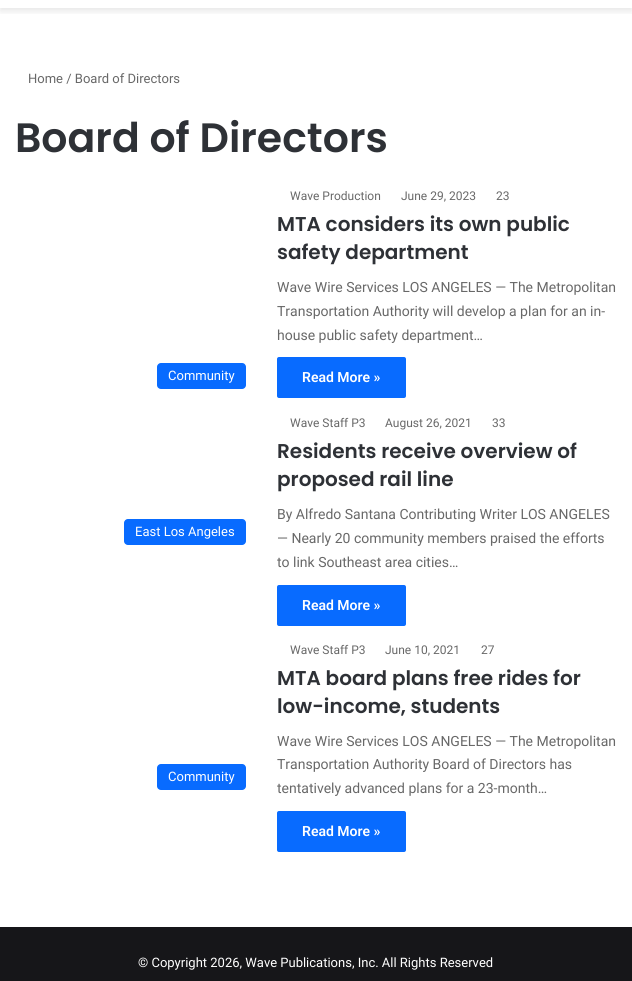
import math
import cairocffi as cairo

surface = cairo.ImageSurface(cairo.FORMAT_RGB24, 632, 981)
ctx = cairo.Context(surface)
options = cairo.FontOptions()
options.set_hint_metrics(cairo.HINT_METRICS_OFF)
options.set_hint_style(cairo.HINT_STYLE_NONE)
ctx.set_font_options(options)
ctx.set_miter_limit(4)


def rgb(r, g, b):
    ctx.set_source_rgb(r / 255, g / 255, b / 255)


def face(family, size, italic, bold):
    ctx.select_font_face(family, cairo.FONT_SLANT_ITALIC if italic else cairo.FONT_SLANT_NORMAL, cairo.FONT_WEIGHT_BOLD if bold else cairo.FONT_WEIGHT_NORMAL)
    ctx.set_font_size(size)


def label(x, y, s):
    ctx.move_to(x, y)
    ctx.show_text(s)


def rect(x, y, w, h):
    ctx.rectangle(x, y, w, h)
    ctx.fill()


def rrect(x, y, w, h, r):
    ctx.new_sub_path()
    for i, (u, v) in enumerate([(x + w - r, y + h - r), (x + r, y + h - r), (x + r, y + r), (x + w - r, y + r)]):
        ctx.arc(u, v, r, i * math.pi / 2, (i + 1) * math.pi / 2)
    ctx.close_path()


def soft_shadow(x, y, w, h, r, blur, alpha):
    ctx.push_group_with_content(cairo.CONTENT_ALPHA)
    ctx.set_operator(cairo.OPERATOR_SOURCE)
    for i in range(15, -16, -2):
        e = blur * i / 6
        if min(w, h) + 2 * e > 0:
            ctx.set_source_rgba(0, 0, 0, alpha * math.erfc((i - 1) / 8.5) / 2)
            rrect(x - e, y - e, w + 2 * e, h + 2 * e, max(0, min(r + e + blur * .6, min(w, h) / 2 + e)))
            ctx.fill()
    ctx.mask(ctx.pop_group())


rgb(255, 255, 255)
ctx.paint()
ctx.save()
ctx.rectangle(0, 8, 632, 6)
ctx.clip()
rgb(0, 0, 0)
soft_shadow(0, -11, 632, 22, 0, 3.5, 0.1)
ctx.restore()
face('Roboto', 13, 0, 0)
rgb(104, 104, 104)
label(28, 83, 'Home / Board of Directors')
face('Poppins SemiBold', 41, 0, 0)
rgb(46, 49, 54)
label(15, 152, 'Board of Directors')
rgb(8, 107, 255)
rrect(157, 363, 89, 26, 4)
ctx.fill()
face('Roboto', 13, 0, 0)
rgb(255, 255, 255)
label(168, 380, 'Community')
face('Roboto', 12, 0, 0)
rgb(104, 104, 104)
label(290, 200, 'Wave Production')
label(401, 200, 'June 29, 2023')
label(496, 200, '23')
face('Poppins SemiBold', 20, 0, 0)
rgb(46, 49, 54)
label(277, 231, 'MTA considers its own public')
label(277, 259, 'safety department')
face('Roboto', 14, 0, 0)
rgb(104, 104, 104)
label(277, 292, 'Wave Wire Services LOS ANGELES — The Metropolitan')
label(277, 316, 'Transportation Authority will develop a plan for an in-')
label(277, 340, 'house public safety department…')
rgb(8, 107, 255)
rrect(277, 357, 129, 41, 2)
ctx.fill()
face('Roboto SemiBold', 14, 0, 0)
rgb(255, 255, 255)
label(302, 382, 'Read More »')
rgb(8, 107, 255)
rrect(124, 519, 122, 26, 4)
ctx.fill()
face('Roboto', 13, 0, 0)
rgb(255, 255, 255)
label(135, 536, 'East Los Angeles')
face('Roboto', 12, 0, 0)
rgb(104, 104, 104)
label(290, 427, 'Wave Staff P3')
label(385, 427, 'August 26, 2021')
label(492, 427, '33')
face('Poppins SemiBold', 20, 0, 0)
rgb(46, 49, 54)
label(277, 458, 'Residents receive overview of')
label(277, 486, 'proposed rail line')
face('Roboto', 14, 0, 0)
rgb(104, 104, 104)
label(277, 519, 'By Alfredo Santana Contributing Writer LOS ANGELES')
label(277, 543, '— Nearly 20 community members praised the efforts')
label(277, 567, 'to link Southeast area cities…')
rgb(8, 107, 255)
rrect(277, 585, 129, 41, 2)
ctx.fill()
face('Roboto SemiBold', 14, 0, 0)
rgb(255, 255, 255)
label(302, 610, 'Read More »')
rgb(8, 107, 255)
rrect(157, 764, 89, 26, 4)
ctx.fill()
face('Roboto', 13, 0, 0)
rgb(255, 255, 255)
label(168, 781, 'Community')
face('Roboto', 12, 0, 0)
rgb(104, 104, 104)
label(290, 654, 'Wave Staff P3')
label(385, 654, 'June 10, 2021')
label(481, 654, '27')
face('Poppins SemiBold', 20, 0, 0)
rgb(46, 49, 54)
label(277, 685, 'MTA board plans free rides for')
label(277, 713, 'low-income, students')
face('Roboto', 14, 0, 0)
rgb(104, 104, 104)
label(277, 746, 'Wave Wire Services LOS ANGELES — The Metropolitan')
label(277, 769, 'Transportation Authority Board of Directors has')
label(277, 793, 'tentatively advanced plans for a 23-month…')
rgb(8, 107, 255)
rrect(277, 811, 129, 41, 2)
ctx.fill()
face('Roboto SemiBold', 14, 0, 0)
rgb(255, 255, 255)
label(302, 836, 'Read More »')
rgb(22, 22, 25)
rect(0, 927, 632, 54)
face('Roboto', 13, 0, 0)
rgb(255, 255, 255)
label(138, 967, '© Copyright 2026, Wave Publications, Inc. All Rights Reserved')
surface.write_to_png('render.png')
